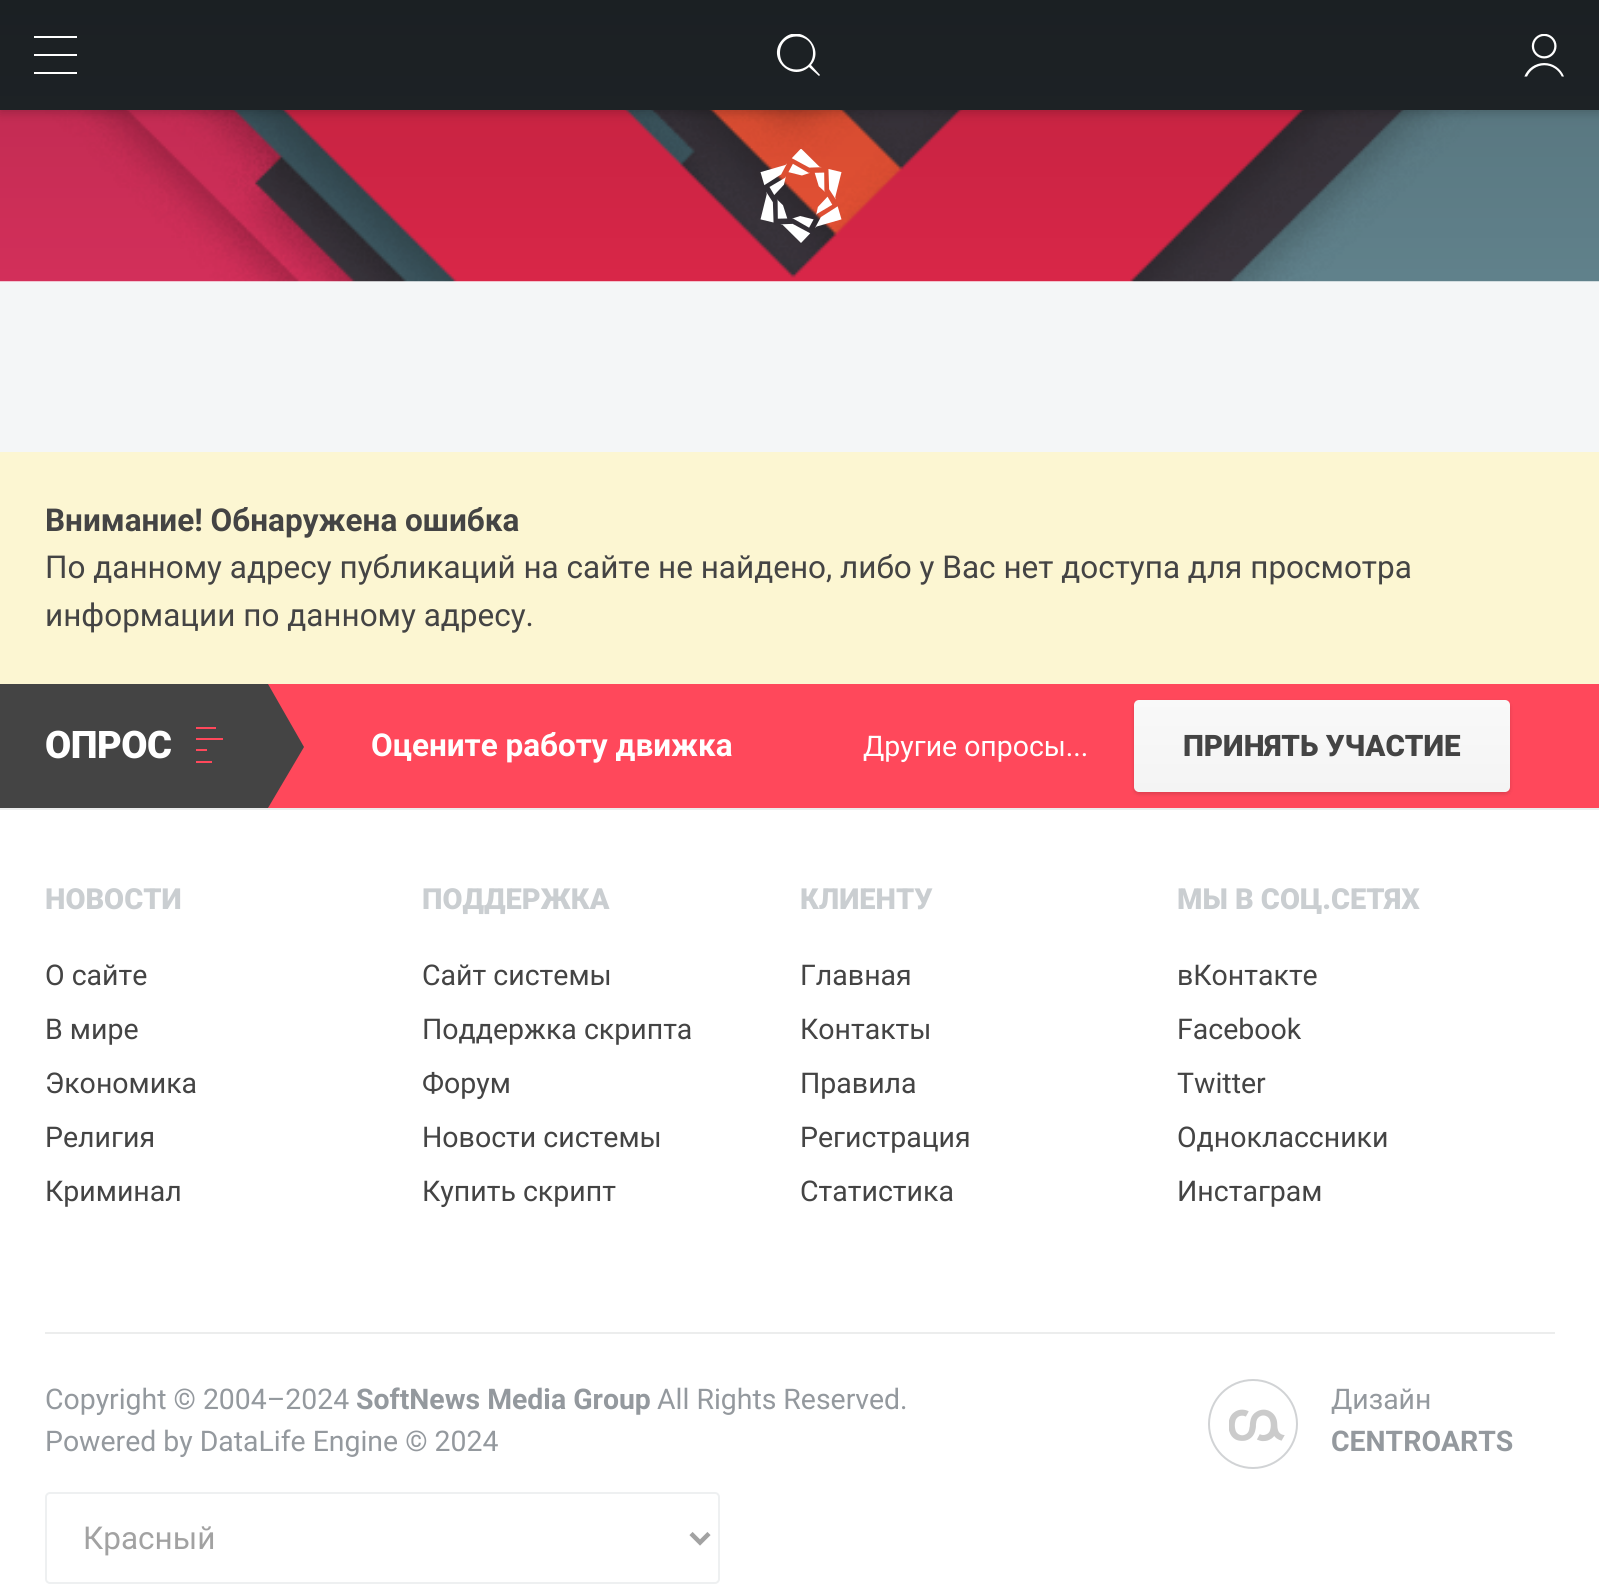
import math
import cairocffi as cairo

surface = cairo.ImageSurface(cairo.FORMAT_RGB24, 1599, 1592)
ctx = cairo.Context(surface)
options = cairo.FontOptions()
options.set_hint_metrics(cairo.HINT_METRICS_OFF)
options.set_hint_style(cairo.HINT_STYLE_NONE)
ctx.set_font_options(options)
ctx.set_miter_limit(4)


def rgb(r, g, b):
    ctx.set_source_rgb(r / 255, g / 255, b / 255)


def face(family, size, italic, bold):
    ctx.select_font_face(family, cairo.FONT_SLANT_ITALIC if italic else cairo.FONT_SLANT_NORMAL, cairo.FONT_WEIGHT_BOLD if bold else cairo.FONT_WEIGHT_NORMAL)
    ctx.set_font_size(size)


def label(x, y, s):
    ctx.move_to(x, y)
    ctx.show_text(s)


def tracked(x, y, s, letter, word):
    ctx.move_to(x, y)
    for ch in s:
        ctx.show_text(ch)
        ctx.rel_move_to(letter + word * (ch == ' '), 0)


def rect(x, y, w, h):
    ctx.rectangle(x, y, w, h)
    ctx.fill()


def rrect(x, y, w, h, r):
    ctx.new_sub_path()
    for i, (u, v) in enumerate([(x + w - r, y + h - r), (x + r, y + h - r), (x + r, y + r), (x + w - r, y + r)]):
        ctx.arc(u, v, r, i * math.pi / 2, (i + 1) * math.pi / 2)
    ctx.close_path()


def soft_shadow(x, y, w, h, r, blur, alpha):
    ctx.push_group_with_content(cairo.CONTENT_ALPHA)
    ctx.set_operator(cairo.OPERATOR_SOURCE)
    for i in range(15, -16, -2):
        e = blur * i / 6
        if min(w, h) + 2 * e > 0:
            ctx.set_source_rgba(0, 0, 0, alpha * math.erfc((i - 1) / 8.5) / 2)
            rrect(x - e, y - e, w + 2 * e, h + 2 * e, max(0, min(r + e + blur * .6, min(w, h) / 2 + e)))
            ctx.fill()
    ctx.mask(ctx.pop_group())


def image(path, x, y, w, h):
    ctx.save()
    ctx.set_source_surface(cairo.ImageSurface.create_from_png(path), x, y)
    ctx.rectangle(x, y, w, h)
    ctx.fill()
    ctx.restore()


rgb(255, 255, 255)
ctx.paint()
rgb(244, 246, 247)
rect(0, 281, 1599, 171)
image('image0.png', 0, 110, 1599, 172)
rgb(0, 0, 0)
soft_shadow(0, 2, 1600, 111, 0, 5.5, 0.2)
rgb(34, 40, 44)
rect(0, 0, 1599, 110)
gradient = cairo.LinearGradient(800, 0, 800, 517)
gradient.add_color_stop_rgba(0, 0, 0, 0, 0.2)
gradient.add_color_stop_rgba(1, 0, 0, 0, 0)
ctx.set_source(gradient)
rect(0, 0, 1599, 281)
rgb(255, 255, 255)
rect(34, 36, 43, 2)
rect(34, 54, 43, 2)
rect(34, 72, 43, 2)
ctx.save()
ctx.rectangle(776, 34, 45, 43)
ctx.clip()
ctx.new_path()
ctx.move_to(820, 75)
ctx.line_to(819, 76)
ctx.line_to(809, 67)
ctx.curve_to(791, 83, 765, 57, 783, 39)
ctx.curve_to(800, 22, 826, 48, 811, 65)
ctx.close_path()
ctx.move_to(813, 53)
ctx.curve_to(813, 31, 780, 31, 780, 53)
ctx.curve_to(780, 75, 813, 75, 813, 53)
ctx.close_path()
ctx.fill()
ctx.restore()
image('image1.png', 1524, 34, 40, 43)
image('image2.png', 760, 149, 82, 94)
rgb(252, 246, 210)
rect(0, 452, 1599, 232)
face('Roboto', 31.5, 0, 1)
rgb(68, 68, 68)
label(45, 531, 'Внимание! Обнаружена ошибка')
face('Roboto', 31.5, 0, 0)
label(45, 578, 'По данному адресу публикаций на сайте не найдено, либо у Вас нет доступа для просмотра')
label(45, 626, 'информации по данному адресу.')
rgb(255, 72, 91)
rect(268, 684, 1331, 124)
rgb(68, 68, 68)
rect(0, 684, 268, 124)
face('Roboto Black', 38, 0, 0)
rgb(255, 255, 255)
tracked(45, 758, 'ОПРОС', -0.5, 0)
rgb(255, 72, 91)
rect(196, 727, 20, 2)
rect(196, 738, 27, 2)
rect(196, 749, 11, 2)
rect(196, 761, 16, 2)
rgb(68, 68, 68)
ctx.new_path()
ctx.move_to(268, 808)
ctx.line_to(268, 684)
ctx.line_to(304, 747)
ctx.close_path()
ctx.fill()
face('Roboto', 31.5, 0, 1)
rgb(255, 255, 255)
label(371, 756, 'Оцените работу движка')
face('Roboto', 28.4, 0, 0)
label(863, 756, 'Другие опросы...')
rgb(0, 0, 0)
soft_shadow(1134, 702, 376, 92, 5, 2, 0.14)
gradient = cairo.LinearGradient(1322, 700, 1322, 792)
gradient.add_color_stop_rgba(0, 0.976, 0.976, 0.976, 1)
gradient.add_color_stop_rgba(1, 0.957, 0.957, 0.957, 1)
ctx.set_source(gradient)
rrect(1134, 700, 376, 92, 5)
ctx.fill()
face('Roboto Black', 29.6, 0, 0)
rgb(68, 68, 68)
label(1183, 756, 'ПРИНЯТЬ УЧАСТИЕ')
rgb(236, 237, 237)
rect(0, 808, 1599, 2)
face('Roboto Black', 29, 0, 0)
rgb(202, 206, 209)
label(45, 909, 'НОВОСТИ')
face('Roboto', 28.5, 0, 0)
rgb(68, 68, 68)
label(45, 985, 'О сайте')
label(45, 1039, 'В мире')
label(45, 1093, 'Экономика')
label(45, 1147, 'Религия')
label(45, 1201, 'Криминал')
face('Roboto Black', 29, 0, 0)
rgb(202, 206, 209)
label(422, 909, 'ПОДДЕРЖКА')
face('Roboto', 28.5, 0, 0)
rgb(68, 68, 68)
label(422, 985, 'Сайт системы')
label(422, 1039, 'Поддержка скрипта')
label(422, 1093, 'Форум')
label(422, 1147, 'Новости системы')
label(422, 1201, 'Купить скрипт')
face('Roboto Black', 29, 0, 0)
rgb(202, 206, 209)
label(800, 909, 'КЛИЕНТУ')
face('Roboto', 28.5, 0, 0)
rgb(68, 68, 68)
label(800, 985, 'Главная')
label(800, 1039, 'Контакты')
label(800, 1093, 'Правила')
label(800, 1147, 'Регистрация')
label(800, 1201, 'Статистика')
face('Roboto Black', 29, 0, 0)
rgb(202, 206, 209)
label(1177, 909, 'МЫ В СОЦ.СЕТЯХ')
face('Roboto', 28.5, 0, 0)
rgb(68, 68, 68)
label(1177, 985, 'вКонтакте')
label(1177, 1039, 'Facebook')
label(1177, 1093, 'Twitter')
label(1177, 1147, 'Одноклассники')
label(1177, 1201, 'Инстаграм')
rgb(236, 237, 237)
rect(45, 1332, 1510, 2)
face('Roboto', 28.4, 0, 0)
rgb(148, 153, 158)
label(45, 1409, 'Copyright © 2004–2024')
face('Roboto', 28.4, 0, 1)
label(356, 1409, 'SoftNews Media Group')
face('Roboto', 28.4, 0, 0)
label(657, 1409, 'All Rights Reserved.')
label(45, 1451, 'Powered by DataLife Engine © 2024')
ctx.new_path()
ctx.arc(1253, 1424, 44, 0, 2 * math.pi)
rgb(209, 211, 213)
ctx.stroke()
image('image3.png', 1229, 1409, 56, 33)
rgb(148, 153, 158)
label(1331, 1409, 'Дизайн')
face('Roboto', 28.4, 0, 1)
label(1331, 1451, 'CENTROARTS')
rrect(46, 1493, 673, 90, 4)
rgb(238, 240, 241)
ctx.stroke()
ctx.new_path()
ctx.move_to(691, 1533.5)
ctx.line_to(700, 1542.5)
ctx.line_to(709, 1533.5)
rgb(162, 162, 162)
ctx.set_line_width(4.5)
ctx.stroke()
face('Roboto', 31.5, 0, 0)
label(83, 1549, 'Красный')
surface.write_to_png('render.png')
